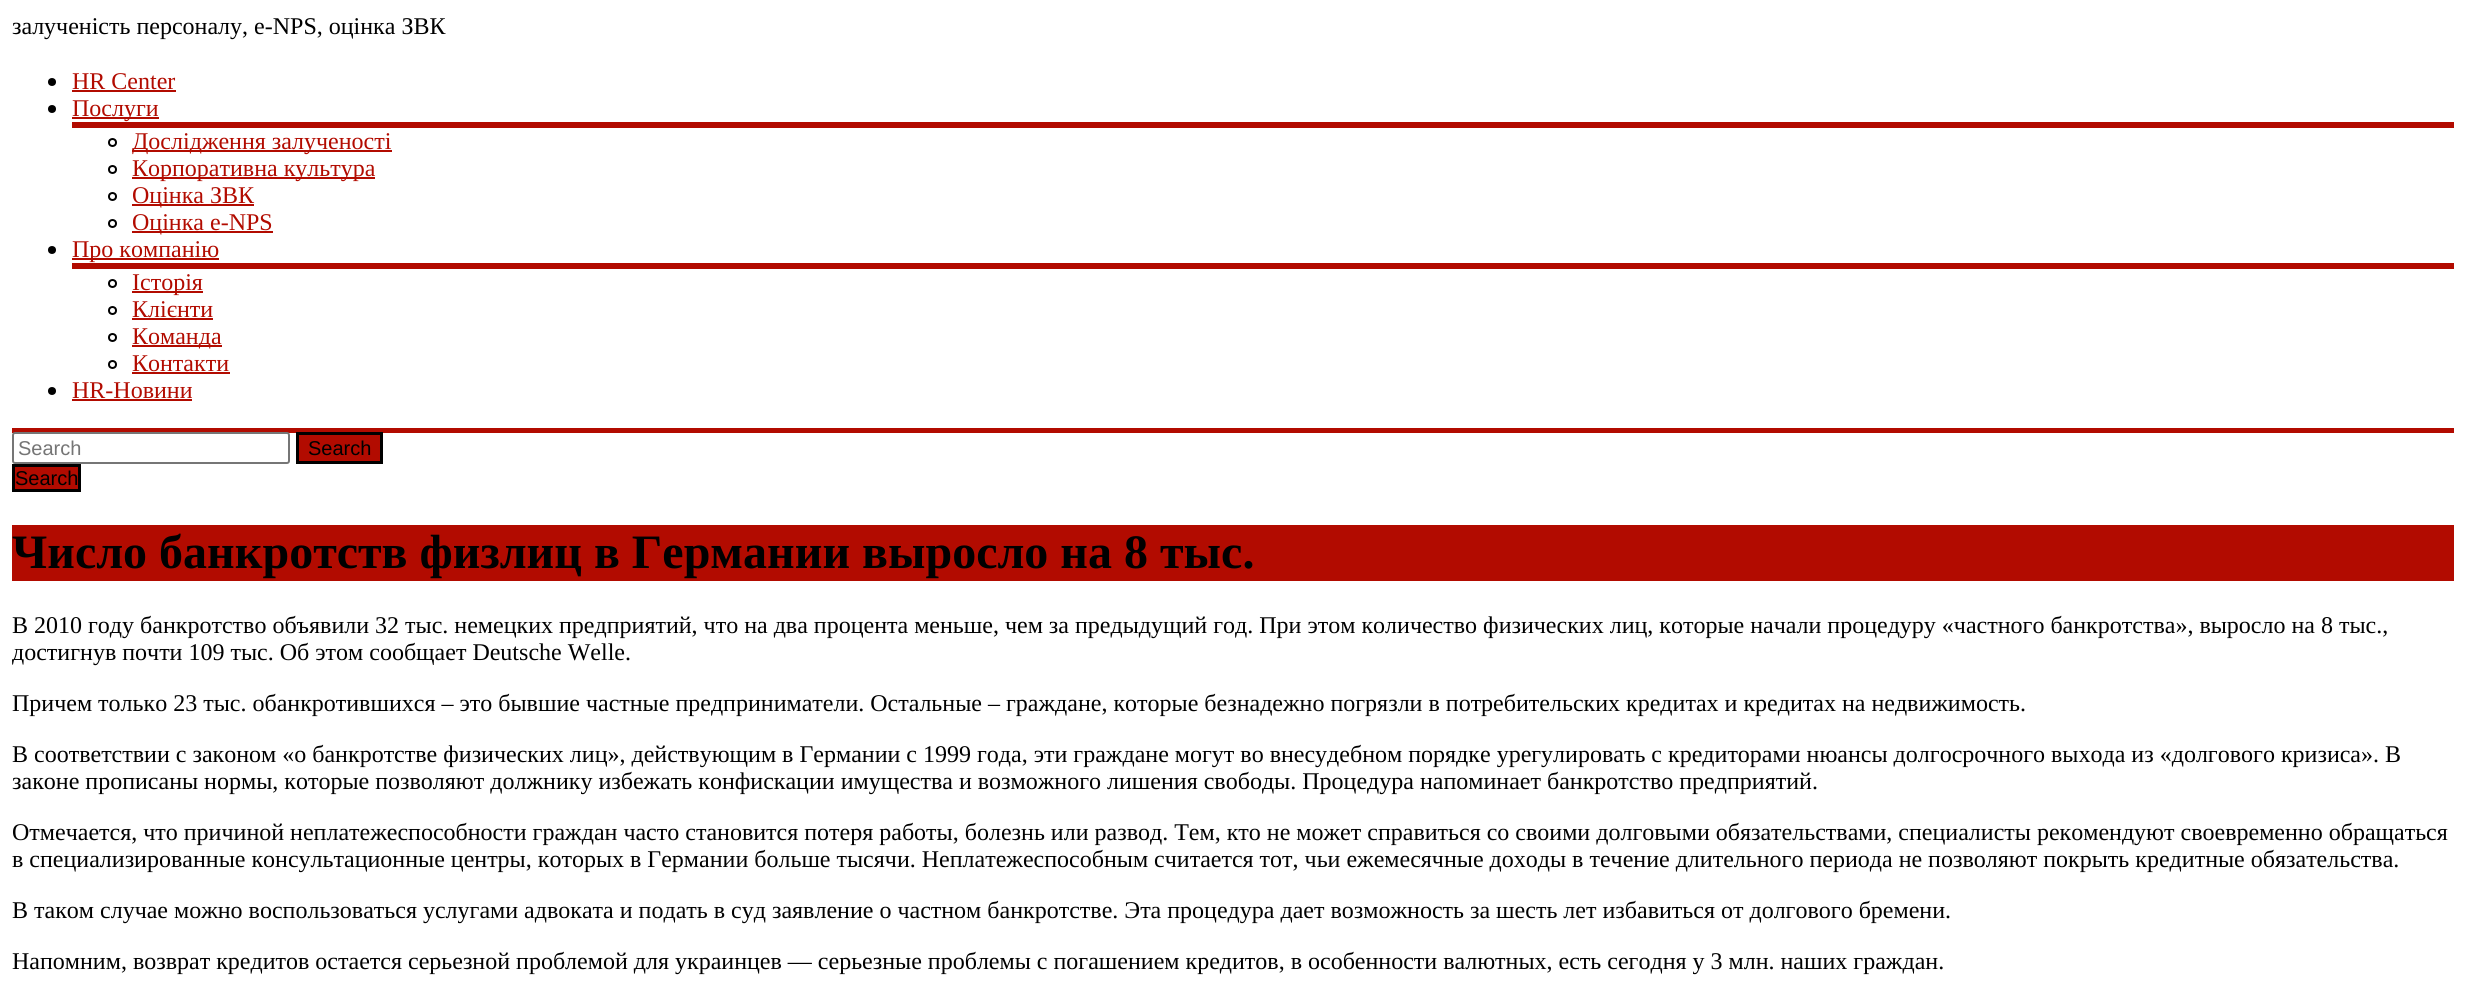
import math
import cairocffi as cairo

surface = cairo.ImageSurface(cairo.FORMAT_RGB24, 2465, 1000)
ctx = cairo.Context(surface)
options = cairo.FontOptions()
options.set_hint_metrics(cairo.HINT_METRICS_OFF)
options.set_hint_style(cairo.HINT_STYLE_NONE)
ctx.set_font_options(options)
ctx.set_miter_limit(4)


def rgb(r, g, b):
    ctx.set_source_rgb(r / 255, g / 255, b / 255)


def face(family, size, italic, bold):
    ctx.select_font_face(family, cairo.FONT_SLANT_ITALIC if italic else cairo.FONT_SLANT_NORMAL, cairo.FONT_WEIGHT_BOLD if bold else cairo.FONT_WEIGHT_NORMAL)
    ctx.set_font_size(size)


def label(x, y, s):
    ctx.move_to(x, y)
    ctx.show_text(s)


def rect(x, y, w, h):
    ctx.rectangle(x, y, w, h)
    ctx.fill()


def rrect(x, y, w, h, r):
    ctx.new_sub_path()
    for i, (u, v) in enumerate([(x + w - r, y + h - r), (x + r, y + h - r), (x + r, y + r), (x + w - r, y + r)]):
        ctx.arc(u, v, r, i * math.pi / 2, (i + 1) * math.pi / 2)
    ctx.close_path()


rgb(255, 255, 255)
ctx.paint()
face('Liberation Serif', 24, 0, 0)
rgb(0, 0, 0)
label(12, 34, 'залученість персоналу, e-NPS, оцінка ЗВК')
ctx.new_path()
ctx.arc(52, 82, 4, 0, 2 * math.pi)
ctx.fill()
rgb(178, 11, 0)
label(72, 89, 'HR Center')
rect(72, 90, 104, 2)
rgb(0, 0, 0)
ctx.new_path()
ctx.arc(52, 109, 4, 0, 2 * math.pi)
ctx.fill()
rgb(178, 11, 0)
rect(72, 117, 87, 2)
label(72, 116, 'Послуги')
rect(72, 122, 2382, 6)
ctx.new_path()
ctx.arc(112.5, 142.5, 3.5, 0, 2 * math.pi)
rgb(0, 0, 0)
ctx.stroke()
rgb(178, 11, 0)
rect(132, 150, 260, 2)
label(132, 149, 'Дослідження залученості')
ctx.new_path()
ctx.arc(112.5, 169.5, 3.5, 0, 2 * math.pi)
rgb(0, 0, 0)
ctx.stroke()
rgb(178, 11, 0)
rect(132, 177, 243, 2)
label(132, 176, 'Корпоративна культура')
ctx.new_path()
ctx.arc(112.5, 196.5, 3.5, 0, 2 * math.pi)
rgb(0, 0, 0)
ctx.stroke()
rgb(178, 11, 0)
rect(132, 204, 122, 2)
label(132, 203, 'Оцінка ЗВК')
ctx.new_path()
ctx.arc(112.5, 223.5, 3.5, 0, 2 * math.pi)
rgb(0, 0, 0)
ctx.stroke()
rgb(178, 11, 0)
rect(132, 231, 141, 2)
label(132, 230, 'Оцінка e-NPS')
rgb(0, 0, 0)
ctx.new_path()
ctx.arc(52, 250, 4, 0, 2 * math.pi)
ctx.fill()
rgb(178, 11, 0)
rect(72, 258, 147, 2)
label(72, 257, 'Про компанію')
rect(72, 263, 2382, 6)
ctx.new_path()
ctx.arc(112.5, 283.5, 3.5, 0, 2 * math.pi)
rgb(0, 0, 0)
ctx.stroke()
rgb(178, 11, 0)
rect(132, 291, 71, 2)
label(132, 290, 'Історія')
ctx.new_path()
ctx.arc(112.5, 310.5, 3.5, 0, 2 * math.pi)
rgb(0, 0, 0)
ctx.stroke()
rgb(178, 11, 0)
label(132, 317, 'Клієнти')
rect(132, 318, 81, 2)
ctx.new_path()
ctx.arc(112.5, 337.5, 3.5, 0, 2 * math.pi)
rgb(0, 0, 0)
ctx.stroke()
rgb(178, 11, 0)
rect(132, 345, 90, 2)
label(132, 344, 'Команда')
ctx.new_path()
ctx.arc(112.5, 364.5, 3.5, 0, 2 * math.pi)
rgb(0, 0, 0)
ctx.stroke()
rgb(178, 11, 0)
label(132, 371, 'Контакти')
rect(132, 372, 98, 2)
rgb(0, 0, 0)
ctx.new_path()
ctx.arc(52, 391, 4, 0, 2 * math.pi)
ctx.fill()
rgb(178, 11, 0)
label(72, 398, 'HR-Новини')
rect(72, 399, 120, 2)
rect(12, 428, 2442, 5)
rgb(255, 255, 255)
rrect(13, 433, 276, 30, 2)
ctx.fill_preserve()
rgb(118, 118, 118)
ctx.stroke()
face('Liberation Sans', 20, 0, 0)
rgb(117, 117, 117)
label(18, 455, 'Search')
rgb(178, 11, 0)
ctx.rectangle(297.5, 433.5, 84, 29)
ctx.fill_preserve()
rgb(0, 0, 0)
ctx.set_line_width(3)
ctx.stroke()
label(308, 455, 'Search')
rgb(178, 11, 0)
ctx.rectangle(13.5, 465.5, 66, 25)
ctx.fill_preserve()
rgb(0, 0, 0)
ctx.stroke()
label(15, 485, 'Search')
rgb(178, 11, 0)
rect(12, 525, 2442, 56)
face('Liberation Serif', 48, 0, 1)
rgb(0, 0, 0)
label(12, 568, 'Число банкротств физлиц в Германии выросло на 8 тыс.')
face('Liberation Serif', 24, 0, 0)
label(12, 633, 'В 2010 году банкротство объявили 32 тыс. немецких предприятий, что на два процента меньше, чем за предыдущий год. При этом количество физических лиц, которые начали процедуру «частного банкротства», выросло на 8 тыс.,')
label(12, 660, 'достигнув почти 109 тыс. Об этом сообщает Deutsche Welle.')
label(12, 711, 'Причем только 23 тыс. обанкротившихся – это бывшие частные предприниматели. Остальные – граждане, которые безнадежно погрязли в потребительских кредитах и кредитах на недвижимость.')
label(12, 762, 'В соответствии с законом «о банкротстве физических лиц», действующим в Германии с 1999 года, эти граждане могут во внесудебном порядке урегулировать с кредиторами нюансы долгосрочного выхода из «долгового кризиса». В')
label(12, 789, 'законе прописаны нормы, которые позволяют должнику избежать конфискации имущества и возможного лишения свободы. Процедура напоминает банкротство предприятий.')
label(12, 840, 'Отмечается, что причиной неплатежеспособности граждан часто становится потеря работы, болезнь или развод. Тем, кто не может справиться со своими долговыми обязательствами, специалисты рекомендуют своевременно обращаться')
label(12, 867, 'в специализированные консультационные центры, которых в Германии больше тысячи. Неплатежеспособным считается тот, чьи ежемесячные доходы в течение длительного периода не позволяют покрыть кредитные обязательства.')
label(12, 918, 'В таком случае можно воспользоваться услугами адвоката и подать в суд заявление о частном банкротстве. Эта процедура дает возможность за шесть лет избавиться от долгового бремени.')
label(12, 969, 'Напомним, возврат кредитов остается серьезной проблемой для украинцев — серьезные проблемы с погашением кредитов, в особенности валютных, есть сегодня у 3 млн. наших граждан.')
surface.write_to_png('render.png')
